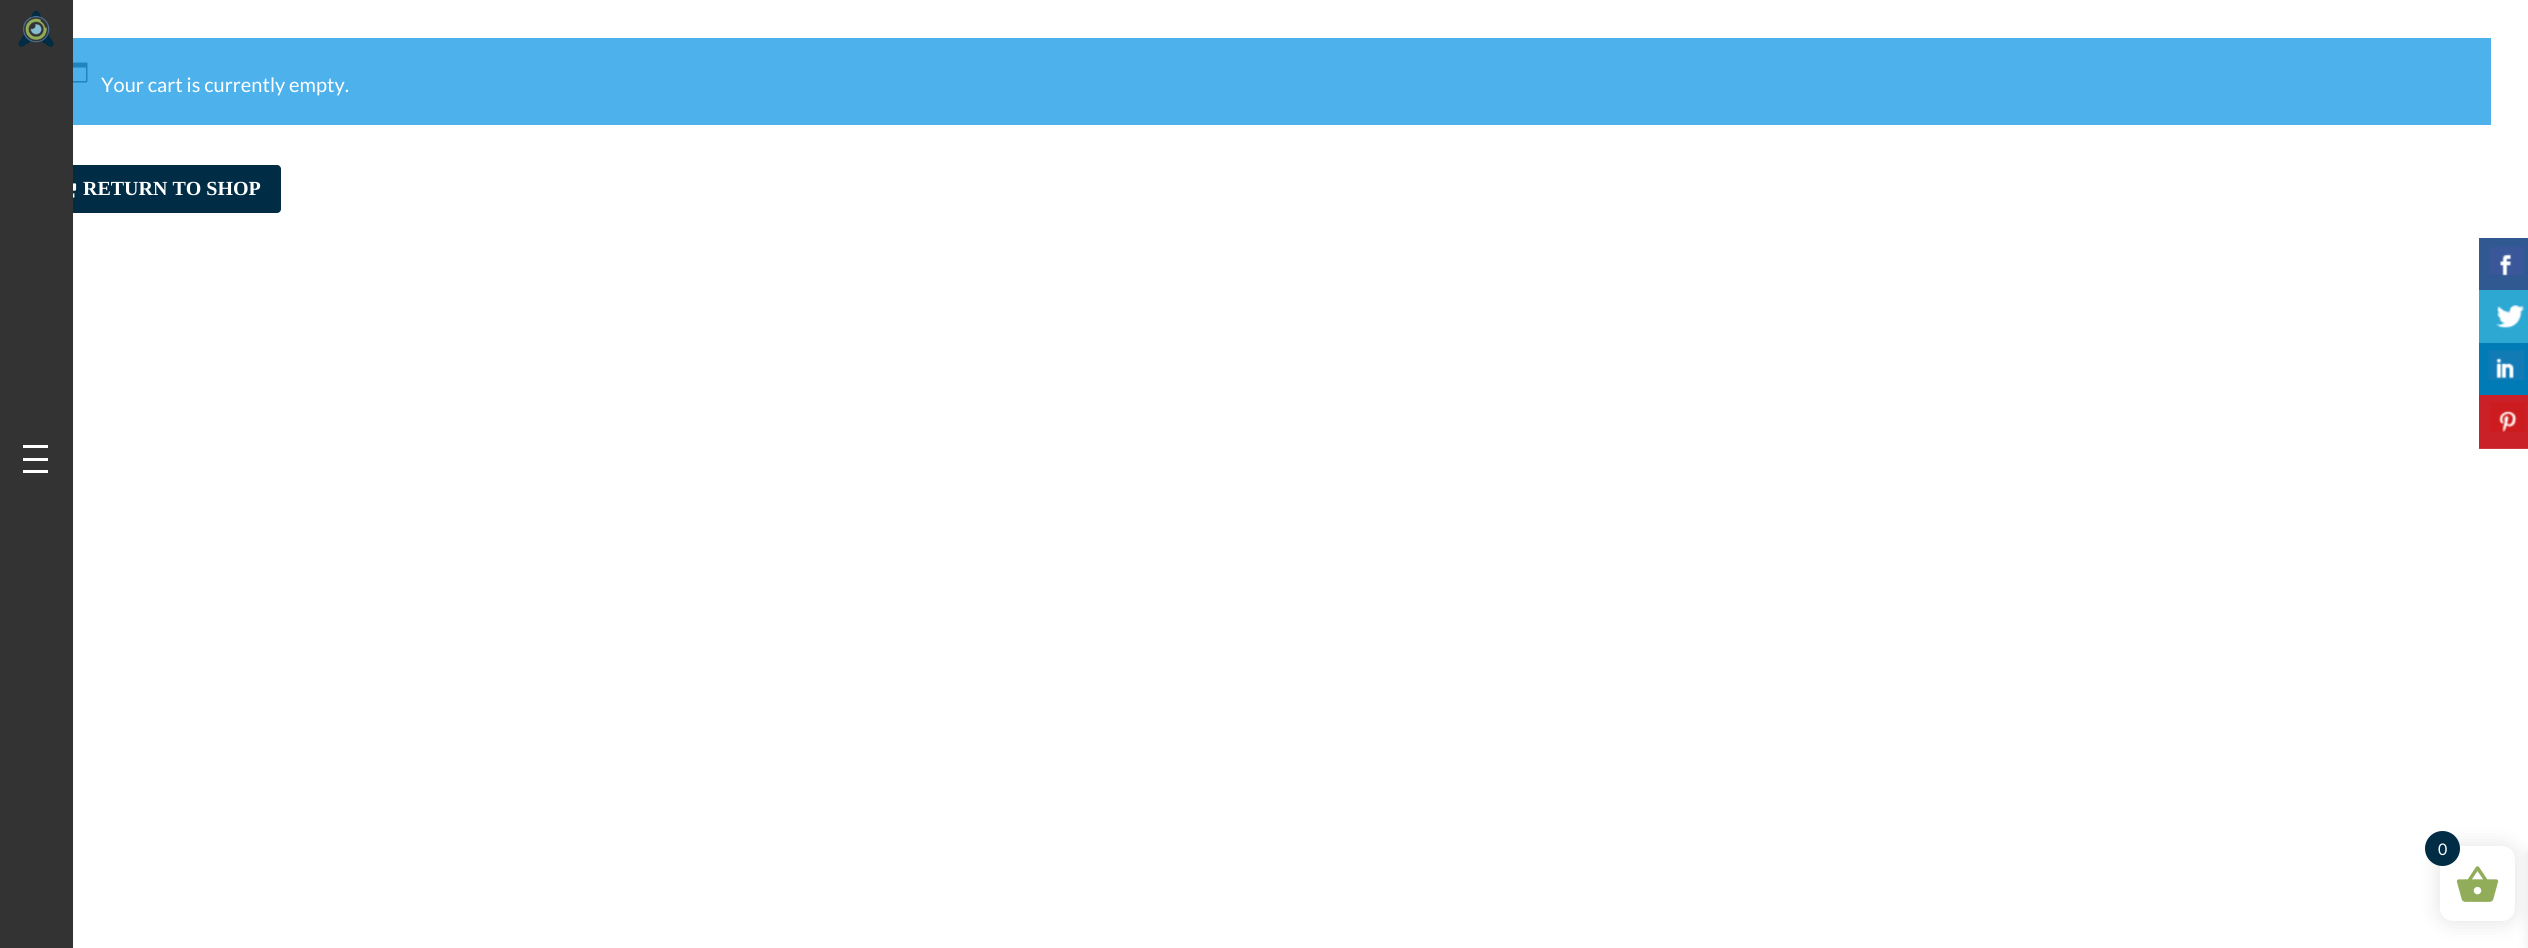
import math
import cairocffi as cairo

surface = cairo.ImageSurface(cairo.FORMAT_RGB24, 2528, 948)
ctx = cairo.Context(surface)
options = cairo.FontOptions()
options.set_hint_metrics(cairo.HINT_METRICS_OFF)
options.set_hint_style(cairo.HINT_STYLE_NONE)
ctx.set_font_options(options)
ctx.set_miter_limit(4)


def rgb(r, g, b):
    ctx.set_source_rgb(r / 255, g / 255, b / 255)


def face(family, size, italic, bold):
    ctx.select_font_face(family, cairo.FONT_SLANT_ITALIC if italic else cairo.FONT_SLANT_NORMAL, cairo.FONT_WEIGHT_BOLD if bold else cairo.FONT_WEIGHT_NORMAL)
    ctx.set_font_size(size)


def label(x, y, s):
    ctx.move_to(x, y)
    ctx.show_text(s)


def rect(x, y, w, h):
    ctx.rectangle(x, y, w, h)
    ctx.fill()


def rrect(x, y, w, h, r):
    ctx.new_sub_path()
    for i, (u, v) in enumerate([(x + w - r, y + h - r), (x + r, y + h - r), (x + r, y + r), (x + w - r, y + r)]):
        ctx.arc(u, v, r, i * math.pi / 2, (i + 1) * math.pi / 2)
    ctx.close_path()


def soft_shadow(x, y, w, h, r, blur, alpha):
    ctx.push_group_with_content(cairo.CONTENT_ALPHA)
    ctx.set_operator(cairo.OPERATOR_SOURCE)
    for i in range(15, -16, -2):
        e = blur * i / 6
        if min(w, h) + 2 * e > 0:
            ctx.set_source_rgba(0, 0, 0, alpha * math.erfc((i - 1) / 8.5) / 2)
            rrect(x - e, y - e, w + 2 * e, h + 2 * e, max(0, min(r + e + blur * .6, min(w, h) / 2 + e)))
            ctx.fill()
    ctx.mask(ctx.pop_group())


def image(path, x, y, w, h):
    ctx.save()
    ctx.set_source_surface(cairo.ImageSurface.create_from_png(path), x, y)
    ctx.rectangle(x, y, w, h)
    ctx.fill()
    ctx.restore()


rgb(255, 255, 255)
ctx.paint()
rgb(1, 44, 69)
rrect(38.5, 165.5, 242, 47, 3.5)
ctx.fill_preserve()
ctx.set_line_width(1)
ctx.stroke()
rgb(51, 51, 51)
rect(0, 0, 73, 948)
image('image0.png', 18, 10, 36, 37)
rgb(255, 255, 255)
rect(23, 458, 25, 3)
rect(23, 445, 25, 3)
rect(23, 470, 25, 3)
rgb(77, 178, 236)
rect(73, 38, 2418, 87)
image('image1.png', 73, 62, 15, 21)
face('Lato', 20, 0, 0)
rgb(255, 255, 255)
label(101, 92, 'Your cart is currently empty.')
image('image2.png', 73, 183, 4, 15)
face('Liberation Serif', 20, 0, 1)
label(83, 195, 'RETURN TO SHOP')
rgb(48, 88, 145)
rect(2479, 238, 49, 52)
image('image3.png', 2489, 246, 35, 30)
rgb(44, 168, 210)
rect(2479, 290, 49, 53)
image('image4.png', 2496, 304, 29, 25)
rgb(0, 123, 182)
rect(2479, 343, 49, 52)
image('image5.png', 2488, 350, 37, 30)
rgb(202, 32, 39)
rect(2479, 395, 49, 53)
rgb(207, 54, 61)
rect(2479, 448, 49, 1)
image('image6.png', 2490, 402, 36, 31)
rgb(0, 0, 0)
soft_shadow(2438, 844, 80, 80, 15, 9.5, 0.1)
soft_shadow(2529, 853, 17, 95, 0, 6, 0.1)
rgb(255, 255, 255)
rrect(2440, 846, 75, 75, 13)
ctx.fill()
rgb(1, 44, 69)
ctx.arc(2442.5, 848.5, 17.5, 0, 2 * math.pi)
ctx.fill()
face('Lato', 16, 0, 0)
rgb(255, 255, 255)
label(2438, 855, '0')
image('image7.png', 2456, 866, 43, 36)
surface.write_to_png('render.png')
